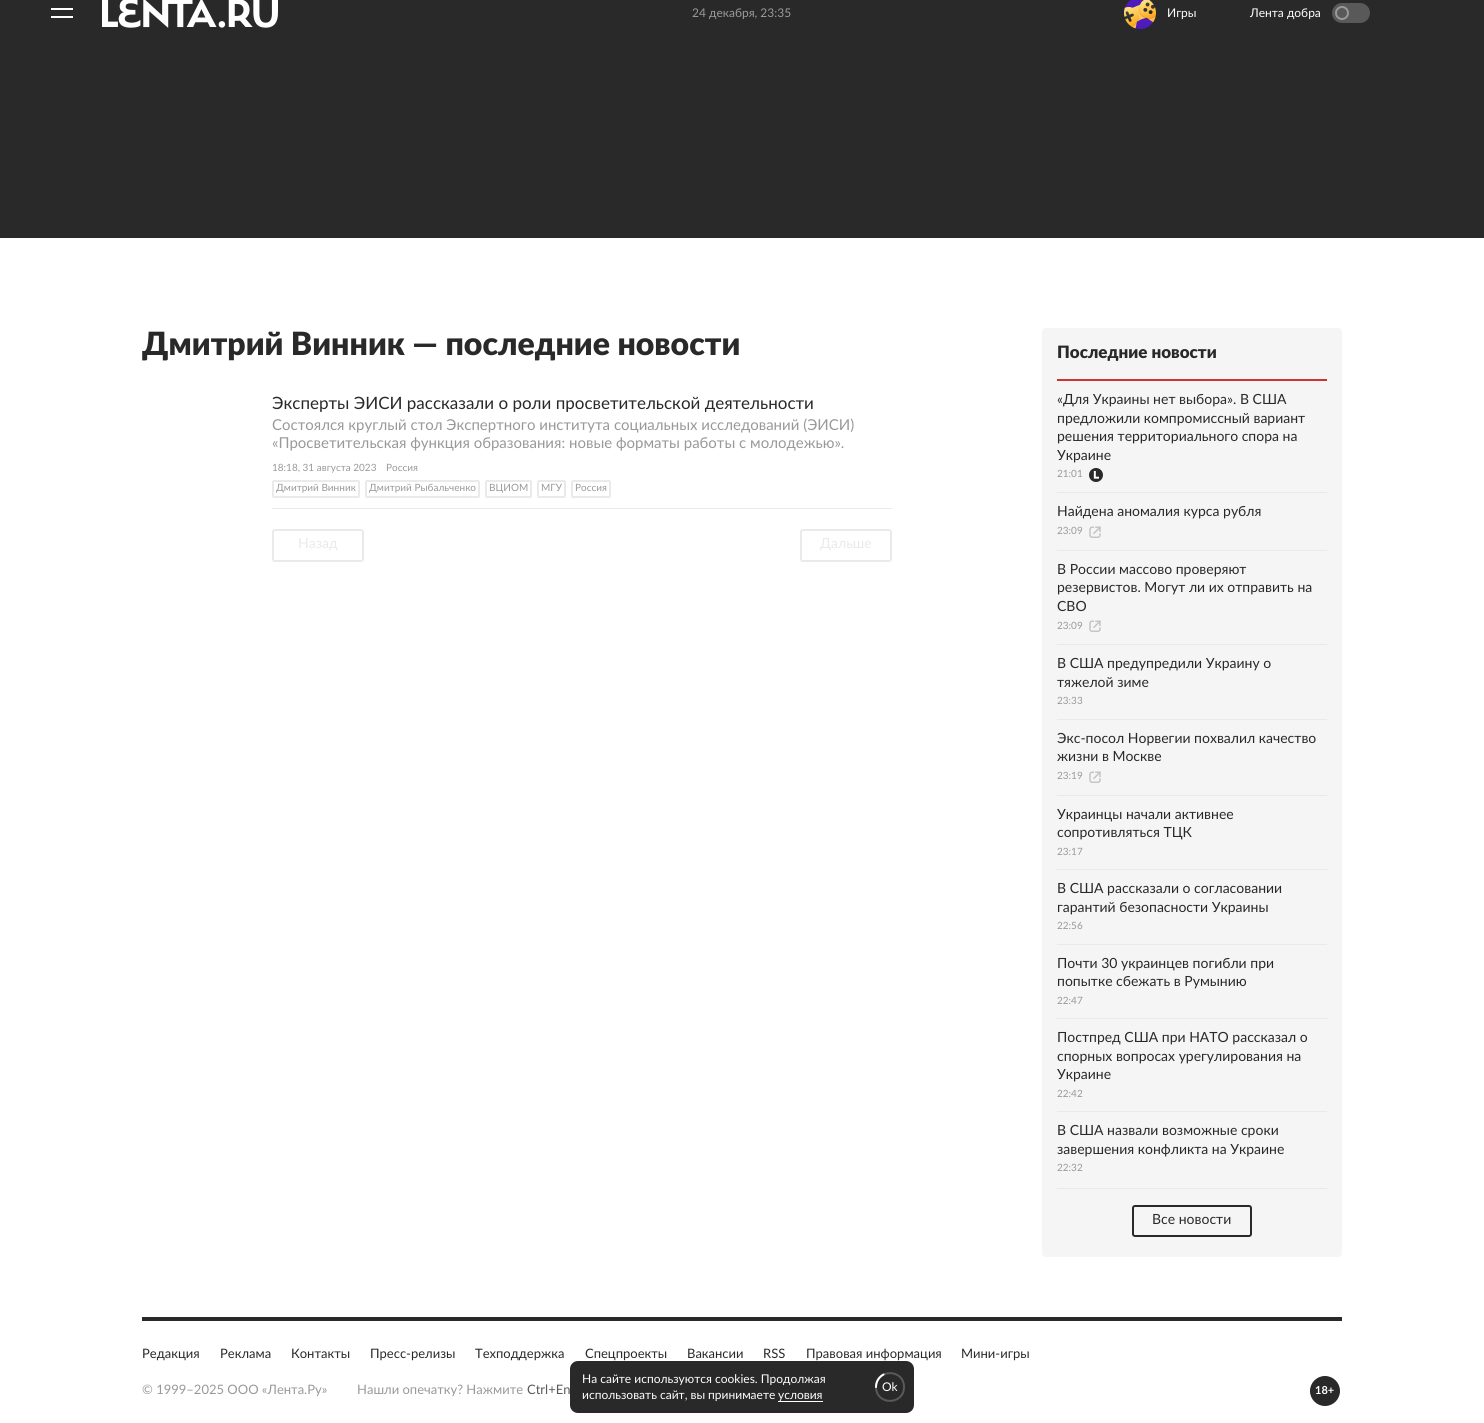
import math
import cairocffi as cairo

surface = cairo.ImageSurface(cairo.FORMAT_RGB24, 1484, 1423)
ctx = cairo.Context(surface)
options = cairo.FontOptions()
options.set_hint_metrics(cairo.HINT_METRICS_OFF)
options.set_hint_style(cairo.HINT_STYLE_NONE)
ctx.set_font_options(options)
ctx.set_miter_limit(4)


def rgb(r, g, b):
    ctx.set_source_rgb(r / 255, g / 255, b / 255)


def face(family, size, italic, bold):
    ctx.select_font_face(family, cairo.FONT_SLANT_ITALIC if italic else cairo.FONT_SLANT_NORMAL, cairo.FONT_WEIGHT_BOLD if bold else cairo.FONT_WEIGHT_NORMAL)
    ctx.set_font_size(size)


def label(x, y, s):
    ctx.move_to(x, y)
    ctx.show_text(s)


def rect(x, y, w, h):
    ctx.rectangle(x, y, w, h)
    ctx.fill()


def rrect(x, y, w, h, r):
    ctx.new_sub_path()
    for i, (u, v) in enumerate([(x + w - r, y + h - r), (x + r, y + h - r), (x + r, y + r), (x + w - r, y + r)]):
        ctx.arc(u, v, r, i * math.pi / 2, (i + 1) * math.pi / 2)
    ctx.close_path()


def image(path, x, y, w, h):
    ctx.save()
    ctx.set_source_surface(cairo.ImageSurface.create_from_png(path), x, y)
    ctx.rectangle(x, y, w, h)
    ctx.fill()
    ctx.restore()


rgb(255, 255, 255)
ctx.paint()
rgb(41, 41, 41)
rect(0, 0, 1484, 238)
rgb(255, 255, 255)
rect(51, 8, 22, 2)
rect(51, 16, 22, 2)
image('image0.png', 102, 0, 176, 28)
face('Lato', 12, 0, 0)
rgb(153, 153, 153)
label(692, 17, '24 декабря, 23:35')
image('image1.png', 1124, 0, 32, 29)
rgb(255, 255, 255)
label(1167, 17, 'Игры')
label(1250, 17, 'Лента добра')
rgb(89, 89, 89)
rrect(1332, 3, 38, 20, 10)
ctx.fill()
ctx.arc(1342, 13, 6, 0, 2 * math.pi)
rgb(153, 153, 153)
ctx.stroke()
face('Lato Black', 32, 0, 0)
rgb(41, 41, 41)
label(142, 355, 'Дмитрий Винник — последние новости')
face('Lato', 17, 0, 0)
label(272, 409, 'Эксперты ЭИСИ рассказали о роли просветительской деятельности')
face('Lato', 15, 0, 0)
rgb(153, 153, 153)
label(272, 430, 'Состоялся круглый стол Экспертного института социальных исследований (ЭИСИ)')
label(272, 448, '«Просветительская функция образования: новые форматы работы с молодежью».')
face('Lato', 10, 0, 0)
label(272, 471, '18:18, 31 августа 2023')
label(386, 471, 'Россия')
rrect(273, 481, 86, 16, 1)
rgb(234, 234, 234)
ctx.stroke()
rgb(153, 153, 153)
label(276, 491, 'Дмитрий Винник')
rrect(366, 481, 113, 16, 1)
rgb(234, 234, 234)
ctx.stroke()
rgb(153, 153, 153)
label(369, 491, 'Дмитрий Рыбальченко')
rrect(486, 481, 45, 16, 1)
rgb(234, 234, 234)
ctx.stroke()
rgb(153, 153, 153)
label(489, 491, 'ВЦИОМ')
rrect(538, 481, 27, 16, 1)
rgb(234, 234, 234)
ctx.stroke()
rgb(153, 153, 153)
label(541, 491, 'МГУ')
rrect(572, 481, 38, 16, 1)
rgb(234, 234, 234)
ctx.stroke()
rgb(153, 153, 153)
label(575, 491, 'Россия')
rgb(234, 234, 234)
rect(272, 508, 620, 1)
rrect(273, 530, 90, 31, 2)
ctx.stroke()
face('Lato', 14, 0, 0)
label(298, 548, 'Назад')
rrect(801, 530, 90, 31, 2)
ctx.stroke()
label(820, 548, 'Дальше')
rgb(245, 245, 245)
rrect(1042, 328, 300, 929, 4)
ctx.fill()
rgb(204, 51, 51)
rect(1057, 379, 270, 2)
face('Lato Black', 17, 0, 0)
rgb(41, 41, 41)
label(1057, 358, 'Последние новости')
rgb(234, 234, 234)
rect(1057, 1188, 270, 1)
rect(1057, 492, 270, 1)
face('Lato', 14, 0, 0)
rgb(41, 41, 41)
label(1057, 404, '«Для Украины нет выбора». В США')
label(1057, 423, 'предложили компромиссный вариант')
label(1057, 441, 'решения территориального спора на')
label(1057, 460, 'Украине')
face('Lato', 10, 0, 0)
rgb(153, 153, 153)
label(1057, 477, '21:01')
image('image2.png', 1089, 468, 14, 14)
rgb(234, 234, 234)
rect(1057, 550, 270, 1)
face('Lato', 14, 0, 0)
rgb(41, 41, 41)
label(1057, 516, 'Найдена аномалия курса рубля')
face('Lato', 10, 0, 0)
rgb(153, 153, 153)
label(1057, 534, '23:09')
image('image3.png', 1089, 526, 12, 12)
rgb(234, 234, 234)
rect(1057, 644, 270, 1)
face('Lato', 14, 0, 0)
rgb(41, 41, 41)
label(1057, 574, 'В России массово проверяют')
label(1057, 592, 'резервистов. Могут ли их отправить на')
label(1057, 611, 'СВО')
face('Lato', 10, 0, 0)
rgb(153, 153, 153)
label(1057, 629, '23:09')
image('image3.png', 1089, 620, 12, 12)
rgb(234, 234, 234)
rect(1057, 719, 270, 1)
face('Lato', 14, 0, 0)
rgb(41, 41, 41)
label(1057, 668, 'В США предупредили Украину о')
label(1057, 687, 'тяжелой зиме')
face('Lato', 10, 0, 0)
rgb(153, 153, 153)
label(1057, 704, '23:33')
rgb(234, 234, 234)
rect(1057, 795, 270, 1)
face('Lato', 14, 0, 0)
rgb(41, 41, 41)
label(1057, 743, 'Экс-посол Норвегии похвалил качество')
label(1057, 761, 'жизни в Москве')
face('Lato', 10, 0, 0)
rgb(153, 153, 153)
label(1057, 779, '23:19')
image('image3.png', 1089, 771, 12, 12)
rgb(234, 234, 234)
rect(1057, 869, 270, 1)
face('Lato', 14, 0, 0)
rgb(41, 41, 41)
label(1057, 819, 'Украинцы начали активнее')
label(1057, 837, 'сопротивляться ТЦК')
face('Lato', 10, 0, 0)
rgb(153, 153, 153)
label(1057, 855, '23:17')
rgb(234, 234, 234)
rect(1057, 944, 270, 1)
face('Lato', 14, 0, 0)
rgb(41, 41, 41)
label(1057, 893, 'В США рассказали о согласовании')
label(1057, 912, 'гарантий безопасности Украины')
face('Lato', 10, 0, 0)
rgb(153, 153, 153)
label(1057, 929, '22:56')
rgb(234, 234, 234)
rect(1057, 1018, 270, 1)
face('Lato', 14, 0, 0)
rgb(41, 41, 41)
label(1057, 968, 'Почти 30 украинцев погибли при')
label(1057, 986, 'попытке сбежать в Румынию')
face('Lato', 10, 0, 0)
rgb(153, 153, 153)
label(1057, 1004, '22:47')
rgb(234, 234, 234)
rect(1057, 1111, 270, 1)
face('Lato', 14, 0, 0)
rgb(41, 41, 41)
label(1057, 1042, 'Постпред США при НАТО рассказал о')
label(1057, 1061, 'спорных вопросах урегулирования на')
label(1057, 1079, 'Украине')
face('Lato', 10, 0, 0)
rgb(153, 153, 153)
label(1057, 1097, '22:42')
face('Lato', 14, 0, 0)
rgb(41, 41, 41)
label(1057, 1135, 'В США назвали возможные сроки')
label(1057, 1154, 'завершения конфликта на Украине')
face('Lato', 10, 0, 0)
rgb(153, 153, 153)
label(1057, 1171, '22:32')
rrect(1133, 1206, 118, 30, 2)
rgb(41, 41, 41)
ctx.stroke()
face('Lato', 14, 0, 0)
label(1152, 1224, 'Все новости')
rect(142, 1317, 1200, 4)
face('Lato', 13, 0, 0)
label(142, 1358, 'Редакция')
label(220, 1358, 'Реклама')
label(291, 1358, 'Контакты')
label(370, 1358, 'Пресс-релизы')
label(475, 1358, 'Техподдержка')
label(585, 1358, 'Спецпроекты')
label(687, 1358, 'Вакансии')
label(763, 1358, 'RSS')
label(806, 1358, 'Правовая информация')
label(961, 1358, 'Мини-игры')
rgb(153, 153, 153)
label(142, 1394, '© 1999–2025 ООО «Лента.Ру»')
label(357, 1394, 'Нашли опечатку? Нажмите')
rgb(89, 89, 89)
label(527, 1394, 'Ctrl+En')
rgb(41, 41, 41)
ctx.new_path()
ctx.arc(1325, 1391, 15, 0, 2 * math.pi)
ctx.fill()
face('Lato', 11, 0, 1)
rgb(255, 255, 255)
label(1315, 1394, '18+')
rgb(41, 41, 41)
rrect(570, 1361, 344, 52, 8)
ctx.fill()
face('Lato', 12, 0, 0)
rgb(255, 255, 255)
label(582, 1383, 'На сайте используются cookies. Продолжая')
label(582, 1399, 'использовать сайт, вы принимаете')
rect(778, 1401, 45, 1)
label(778, 1399, 'условия')
label(882, 1391, 'Ok')
ctx.new_path()
ctx.move_to(876, 1387)
ctx.curve_to(876, 1368.5, 904, 1368.5, 904, 1387)
ctx.curve_to(904, 1405.5, 876, 1405.5, 876, 1387)
ctx.close_path()
rgb(89, 89, 89)
ctx.set_line_cap(cairo.LINE_CAP_ROUND)
ctx.stroke()
ctx.new_path()
ctx.move_to(876, 1387)
ctx.curve_to(876, 1381.5, 879, 1377, 883.5, 1374.5)
rgb(255, 255, 255)
ctx.stroke()
surface.write_to_png('render.png')
